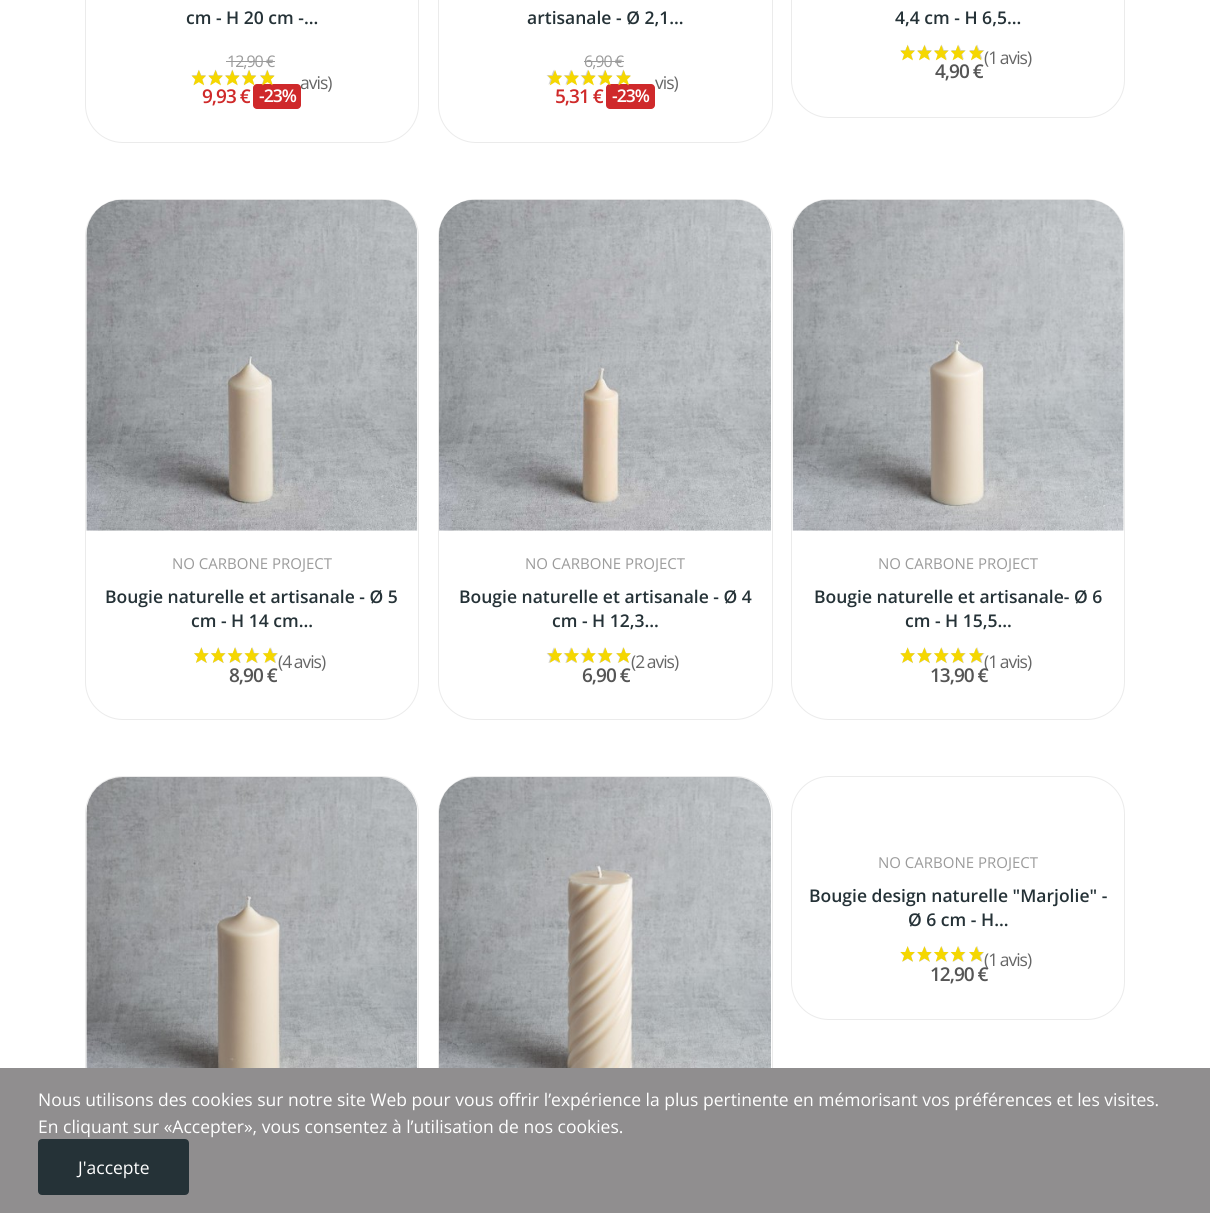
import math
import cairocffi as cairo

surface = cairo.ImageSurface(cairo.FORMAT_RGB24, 1210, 1213)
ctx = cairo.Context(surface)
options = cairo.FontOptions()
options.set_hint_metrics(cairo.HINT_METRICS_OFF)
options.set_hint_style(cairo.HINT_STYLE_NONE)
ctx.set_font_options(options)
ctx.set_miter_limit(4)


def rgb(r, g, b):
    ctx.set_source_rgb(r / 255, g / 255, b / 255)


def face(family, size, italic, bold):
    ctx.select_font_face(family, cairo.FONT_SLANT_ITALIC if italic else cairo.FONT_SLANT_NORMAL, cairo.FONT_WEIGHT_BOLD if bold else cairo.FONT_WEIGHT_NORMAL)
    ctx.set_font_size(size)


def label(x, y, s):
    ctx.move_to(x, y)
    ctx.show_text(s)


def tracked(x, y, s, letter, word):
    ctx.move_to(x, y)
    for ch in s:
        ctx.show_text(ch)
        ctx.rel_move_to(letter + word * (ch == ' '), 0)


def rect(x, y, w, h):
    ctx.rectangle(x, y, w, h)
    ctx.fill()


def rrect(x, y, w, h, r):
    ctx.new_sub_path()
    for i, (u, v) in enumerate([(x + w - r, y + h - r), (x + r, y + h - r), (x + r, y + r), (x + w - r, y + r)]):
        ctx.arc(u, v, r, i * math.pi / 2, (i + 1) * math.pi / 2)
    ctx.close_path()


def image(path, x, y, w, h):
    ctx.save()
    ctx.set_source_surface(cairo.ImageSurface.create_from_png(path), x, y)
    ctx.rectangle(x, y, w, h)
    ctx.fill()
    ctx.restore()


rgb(255, 255, 255)
ctx.paint()
rrect(85.5, -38.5, 333, 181, 37.5)
rgb(235, 235, 235)
ctx.set_line_width(1)
ctx.stroke()
face('Open Sans SemiBold', 17.5, 0, 0)
rgb(37, 50, 55)
label(186, 24, 'cm - H 20 cm -…')
face('Open Sans', 16, 0, 0)
rgb(155, 155, 155)
tracked(227, 67, '12,90 €', -1, 0)
rect(226, 61, 49, 1)
face('Open Sans', 17.5, 0, 0)
rgb(102, 102, 102)
tracked(300, 89, 'avis)', -1, -1)
rgb(207, 41, 43)
rrect(253, 84, 48, 25, 4)
ctx.fill()
image('image0.png', 191, 69, 84, 16)
image('image1.png', 191, 70, 84, 16)
face('Open Sans SemiBold', 19, 0, 0)
rgb(207, 41, 41)
tracked(202, 103, '9,93 €', -1, 0)
face('Open Sans SemiBold', 17.5, 0, 0)
rgb(255, 255, 255)
tracked(259, 102, '-23%', -1, 0)
rrect(438.5, -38.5, 334, 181, 37.5)
rgb(235, 235, 235)
ctx.stroke()
rgb(37, 50, 55)
label(527, 24, 'artisanale - Ø 2,1…')
face('Open Sans', 16, 0, 0)
rgb(155, 155, 155)
tracked(584, 67, '6,90 €', -1, 0)
rect(584, 61, 40, 1)
rgb(207, 41, 43)
rrect(606, 84, 49, 25, 4)
ctx.fill()
image('image2.png', 546, 69, 85, 16)
image('image3.png', 548, 70, 83, 16)
face('Open Sans', 17.5, 0, 0)
rgb(102, 102, 102)
tracked(655, 89, 'vis)', -1, -1)
face('Open Sans SemiBold', 19, 0, 0)
rgb(207, 41, 41)
tracked(555, 103, '5,31 €', -1, 0)
face('Open Sans SemiBold', 17.5, 0, 0)
rgb(255, 255, 255)
tracked(612, 102, '-23%', -1, 0)
rrect(791.5, -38.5, 333, 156, 37.5)
rgb(235, 235, 235)
ctx.stroke()
rgb(37, 50, 55)
label(895, 24, '4,4 cm - H 6,5…')
image('image4.png', 900, 44, 85, 16)
image('image5.png', 900, 45, 84, 16)
face('Open Sans', 17.5, 0, 0)
rgb(102, 102, 102)
tracked(984, 64, '(1 avis)', -1, -1)
face('Open Sans SemiBold', 19, 0, 0)
rgb(85, 85, 85)
tracked(935, 78, '4,90 €', -1, 0)
rrect(85.5, 199.5, 333, 520, 37.5)
rgb(235, 235, 235)
ctx.stroke()
image('image6.png', 86, 199, 332, 332)
face('Open Sans', 15, 0, 0)
rgb(155, 155, 155)
label(172, 569, 'NO CARBONE PROJECT')
face('Open Sans SemiBold', 17.5, 0, 0)
rgb(37, 50, 55)
label(105, 603, 'Bougie naturelle et artisanale - Ø 5')
label(191, 627, 'cm - H 14 cm…')
image('image7.png', 194, 647, 84, 16)
image('image8.png', 194, 647, 83, 16)
face('Open Sans', 17.5, 0, 0)
rgb(102, 102, 102)
tracked(278, 668, '(4 avis)', -1, -1)
face('Open Sans SemiBold', 19, 0, 0)
rgb(85, 85, 85)
tracked(229, 682, '8,90 €', -1, 0)
rrect(438.5, 199.5, 334, 520, 37.5)
rgb(235, 235, 235)
ctx.stroke()
image('image9.png', 439, 199, 332, 332)
face('Open Sans', 15, 0, 0)
rgb(155, 155, 155)
label(525, 569, 'NO CARBONE PROJECT')
face('Open Sans SemiBold', 17.5, 0, 0)
rgb(37, 50, 55)
label(459, 603, 'Bougie naturelle et artisanale - Ø 4')
label(552, 627, 'cm - H 12,3…')
image('image10.png', 546, 647, 85, 16)
image('image11.png', 548, 647, 83, 16)
face('Open Sans', 17.5, 0, 0)
rgb(102, 102, 102)
tracked(631, 668, '(2 avis)', -1, -1)
face('Open Sans SemiBold', 19, 0, 0)
rgb(85, 85, 85)
tracked(582, 682, '6,90 €', -1, 0)
rrect(791.5, 199.5, 333, 520, 37.5)
rgb(235, 235, 235)
ctx.stroke()
image('image12.png', 792, 199, 332, 332)
face('Open Sans', 15, 0, 0)
rgb(155, 155, 155)
label(878, 569, 'NO CARBONE PROJECT')
face('Open Sans SemiBold', 17.5, 0, 0)
rgb(37, 50, 55)
label(814, 603, 'Bougie naturelle et artisanale- Ø 6')
label(905, 627, 'cm - H 15,5…')
image('image13.png', 900, 647, 85, 17)
image('image14.png', 900, 647, 84, 16)
face('Open Sans', 17.5, 0, 0)
rgb(102, 102, 102)
tracked(984, 668, '(1 avis)', -1, -1)
face('Open Sans SemiBold', 19, 0, 0)
rgb(85, 85, 85)
tracked(930, 682, '13,90 €', -1, 0)
rrect(85.5, 776.5, 333, 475, 37.5)
rgb(235, 235, 235)
ctx.stroke()
image('image15.png', 86, 777, 332, 291)
rrect(438.5, 776.5, 334, 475, 37.5)
ctx.stroke()
image('image16.png', 439, 777, 332, 291)
rrect(791.5, 776.5, 333, 243, 37.5)
ctx.stroke()
face('Open Sans', 15, 0, 0)
rgb(155, 155, 155)
label(878, 868, 'NO CARBONE PROJECT')
face('Open Sans SemiBold', 17.5, 0, 0)
rgb(37, 50, 55)
label(809, 902, 'Bougie design naturelle "Marjolie" -')
label(908, 926, 'Ø 6 cm - H…')
image('image17.png', 900, 946, 84, 16)
image('image18.png', 900, 946, 84, 16)
face('Open Sans', 17.5, 0, 0)
rgb(102, 102, 102)
tracked(984, 966, '(1 avis)', -1, -1)
face('Open Sans SemiBold', 19, 0, 0)
rgb(85, 85, 85)
tracked(930, 981, '12,90 €', -1, 0)
rgb(144, 142, 143)
rect(0, 1068, 1210, 145)
face('Open Sans', 17.5, 0, 0)
rgb(255, 255, 255)
label(38, 1106, 'Nous utilisons des cookies sur notre site Web pour vous offrir l’expérience la plus pertinente en mémorisant vos préférences et les visites.')
label(38, 1133, 'En cliquant sur «Accepter», vous consentez à l’utilisation de nos cookies.')
rgb(37, 50, 55)
rrect(39.5, 1140.5, 148, 53, 2.5)
ctx.fill_preserve()
ctx.set_line_width(3)
ctx.stroke()
rgb(255, 255, 255)
label(78, 1174, 'J\'accepte')
surface.write_to_png('render.png')
